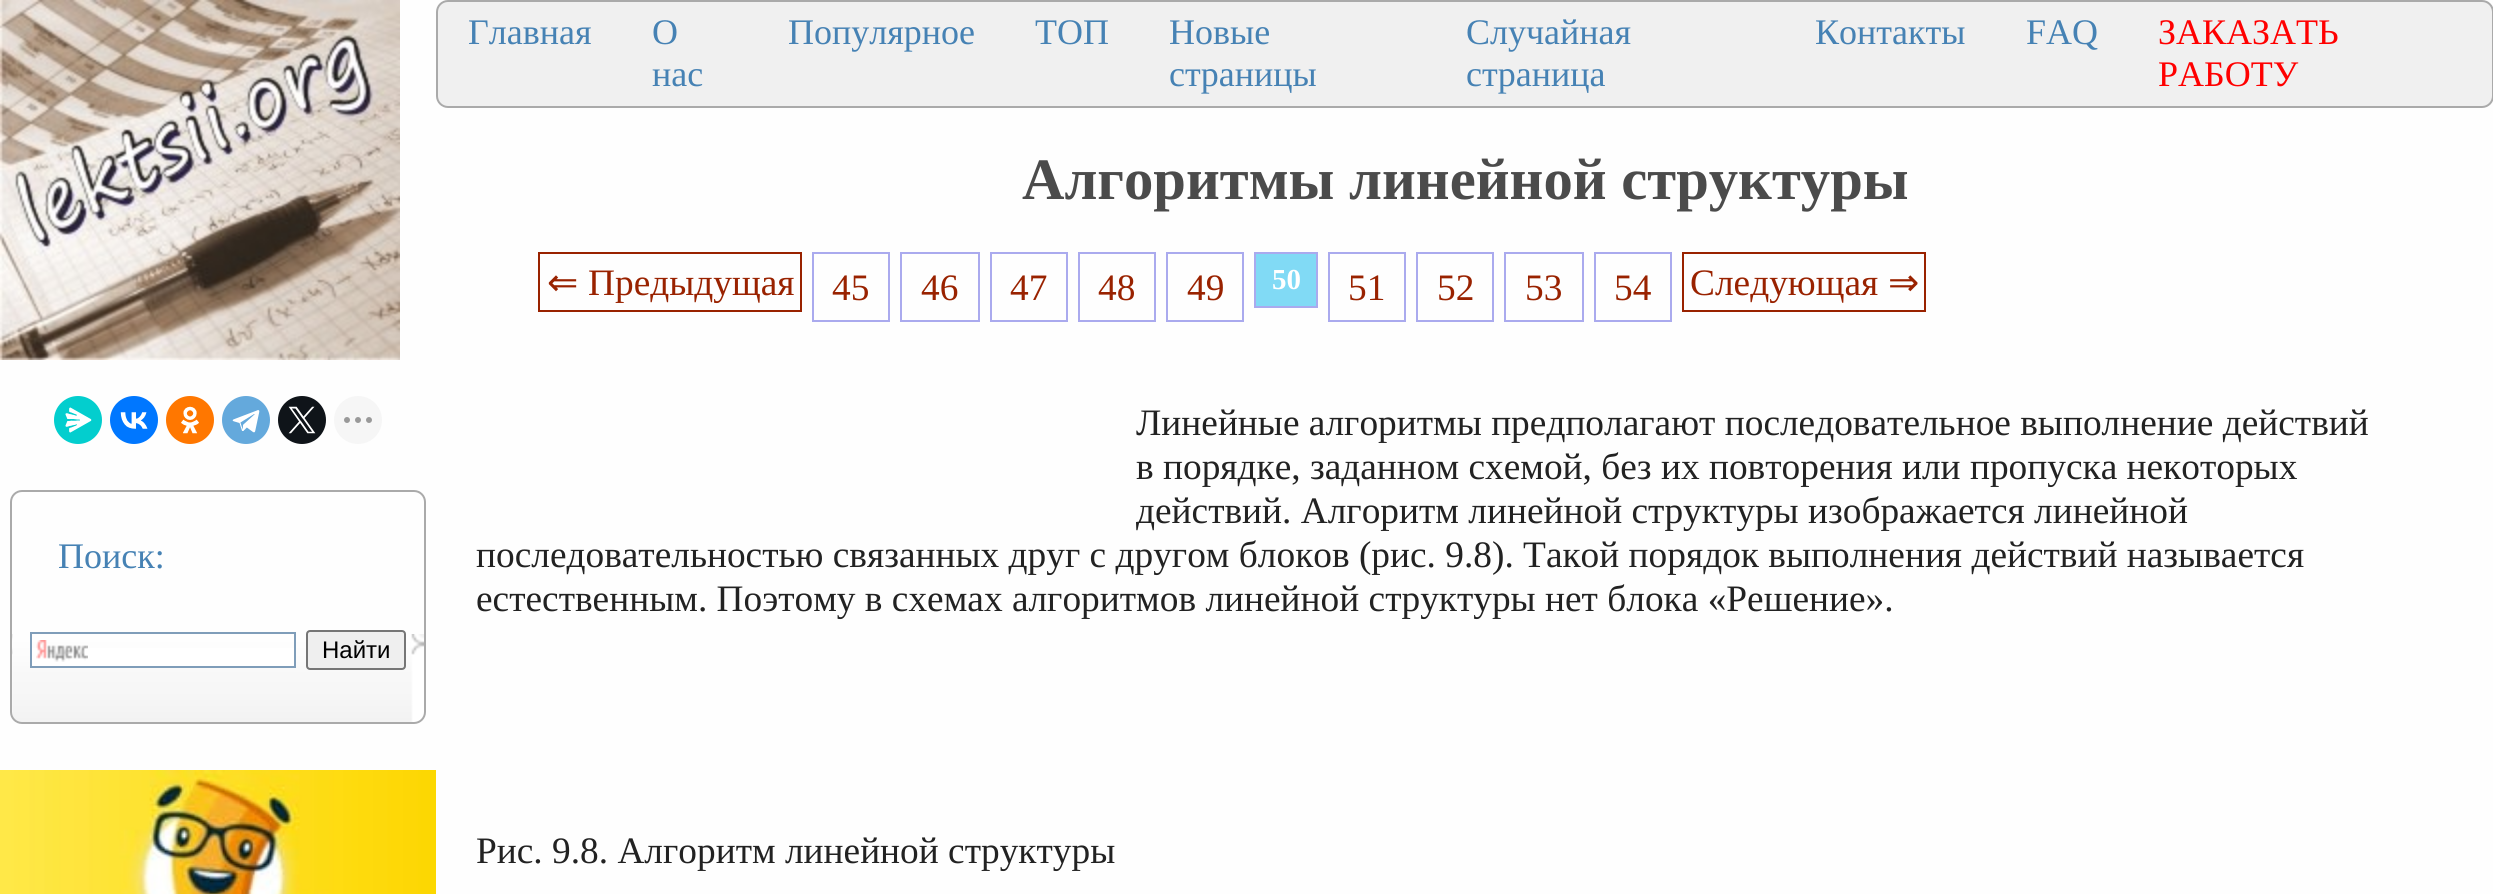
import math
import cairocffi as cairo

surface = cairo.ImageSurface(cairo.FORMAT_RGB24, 2493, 894)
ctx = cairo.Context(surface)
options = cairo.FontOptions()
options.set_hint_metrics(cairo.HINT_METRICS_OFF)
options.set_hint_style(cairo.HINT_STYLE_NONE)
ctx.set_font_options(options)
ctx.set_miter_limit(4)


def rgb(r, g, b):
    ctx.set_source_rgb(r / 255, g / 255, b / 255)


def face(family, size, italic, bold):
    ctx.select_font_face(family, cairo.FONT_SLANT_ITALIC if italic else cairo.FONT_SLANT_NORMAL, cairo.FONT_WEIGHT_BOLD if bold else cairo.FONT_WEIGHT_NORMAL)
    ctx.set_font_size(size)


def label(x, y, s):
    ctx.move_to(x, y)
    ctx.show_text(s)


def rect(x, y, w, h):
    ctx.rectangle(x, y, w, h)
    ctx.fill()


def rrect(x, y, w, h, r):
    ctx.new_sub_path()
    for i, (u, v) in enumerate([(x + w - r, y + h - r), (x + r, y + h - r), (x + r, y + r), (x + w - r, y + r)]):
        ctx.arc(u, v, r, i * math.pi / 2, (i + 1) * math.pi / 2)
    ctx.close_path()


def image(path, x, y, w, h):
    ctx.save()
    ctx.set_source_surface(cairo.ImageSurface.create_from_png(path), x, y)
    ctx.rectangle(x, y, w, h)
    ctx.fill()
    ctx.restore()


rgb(254, 254, 254)
ctx.paint()
image('image0.png', 0, 0, 400, 360)
rgb(3, 206, 206)
ctx.arc(78, 420, 24, 0, 2 * math.pi)
ctx.fill()
image('image1.png', 65, 407, 27, 26)
rgb(0, 119, 255)
ctx.arc(134, 420, 24, 0, 2 * math.pi)
ctx.fill()
image('image2.png', 120, 412, 28, 17)
rgb(255, 119, 0)
ctx.arc(190, 420, 24, 0, 2 * math.pi)
ctx.fill()
image('image3.png', 181, 406, 18, 28)
rgb(100, 169, 220)
ctx.arc(246, 420, 24, 0, 2 * math.pi)
ctx.fill()
image('image4.png', 232, 410, 28, 23)
rgb(15, 20, 25)
ctx.arc(302, 420, 24, 0, 2 * math.pi)
ctx.fill()
image('image5.png', 288, 406, 28, 28)
rgb(246, 246, 246)
ctx.arc(358, 420, 24, 0, 2 * math.pi)
ctx.fill()
image('image6.png', 344, 417, 28, 6)
image('image7.png', 10, 634, 416, 88)
rrect(11, 491, 414, 232, 11)
rgb(170, 170, 170)
ctx.stroke()
face('Liberation Serif', 36, 0, 0)
rgb(70, 130, 180)
label(58, 568, 'Поиск:')
rgb(255, 255, 255)
rect(32, 648, 262, 18)
image('image8.png', 36, 640, 52, 22)
ctx.rectangle(31, 633, 264, 34)
rgb(127, 157, 185)
ctx.stroke()
rgb(239, 239, 239)
rrect(307, 631, 98, 38, 3)
ctx.fill_preserve()
rgb(118, 118, 118)
ctx.stroke()
face('Liberation Sans', 24, 0, 0)
rgb(0, 0, 0)
label(322, 658, 'Найти')
image('image9.png', 0, 770, 436, 124)
rgb(240, 240, 240)
rrect(437, 1, 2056, 106, 11)
ctx.fill_preserve()
rgb(170, 170, 170)
ctx.stroke()
face('Liberation Serif', 36, 0, 0)
rgb(70, 130, 180)
label(468, 44, 'Главная')
label(652, 44, 'О')
label(652, 86, 'нас')
label(788, 44, 'Популярное')
label(1035, 44, 'ТОП')
label(1169, 44, 'Новые')
label(1169, 86, 'страницы')
label(1466, 44, 'Случайная')
label(1466, 86, 'страница')
label(1815, 44, 'Контакты')
label(2026, 44, 'FAQ')
rgb(255, 0, 0)
label(2158, 44, 'ЗАКАЗАТЬ')
label(2158, 86, 'РАБОТУ')
face('Liberation Serif', 58.7, 0, 1)
rgb(75, 75, 75)
label(1022, 199, 'Алгоритмы линейной структуры')
ctx.rectangle(539, 253, 262, 58)
rgb(153, 34, 0)
ctx.stroke()
face('DejaVu Sans', 37.35, 0, 0)
label(547, 295, '⇐')
face('Liberation Serif', 37.35, 0, 0)
label(588, 295, 'Предыдущая')
ctx.rectangle(813, 253, 76, 68)
rgb(170, 170, 238)
ctx.stroke()
rgb(153, 34, 0)
label(832, 300, '45')
ctx.rectangle(901, 253, 78, 68)
rgb(170, 170, 238)
ctx.stroke()
rgb(153, 34, 0)
label(921, 300, '46')
ctx.rectangle(991, 253, 76, 68)
rgb(170, 170, 238)
ctx.stroke()
rgb(153, 34, 0)
label(1010, 300, '47')
ctx.rectangle(1079, 253, 76, 68)
rgb(170, 170, 238)
ctx.stroke()
rgb(153, 34, 0)
label(1098, 300, '48')
ctx.rectangle(1167, 253, 76, 68)
rgb(170, 170, 238)
ctx.stroke()
rgb(153, 34, 0)
label(1187, 300, '49')
rgb(129, 218, 245)
ctx.rectangle(1255, 253, 62, 54)
ctx.fill_preserve()
rgb(170, 170, 238)
ctx.stroke()
face('Liberation Serif', 29, 0, 1)
rgb(255, 255, 255)
label(1272, 289, '50')
ctx.rectangle(1329, 253, 76, 68)
rgb(170, 170, 238)
ctx.stroke()
face('Liberation Serif', 37.35, 0, 0)
rgb(153, 34, 0)
label(1348, 300, '51')
ctx.rectangle(1417, 253, 76, 68)
rgb(170, 170, 238)
ctx.stroke()
rgb(153, 34, 0)
label(1437, 300, '52')
ctx.rectangle(1505, 253, 78, 68)
rgb(170, 170, 238)
ctx.stroke()
rgb(153, 34, 0)
label(1525, 300, '53')
ctx.rectangle(1595, 253, 76, 68)
rgb(170, 170, 238)
ctx.stroke()
rgb(153, 34, 0)
label(1614, 300, '54')
ctx.rectangle(1683, 253, 242, 58)
ctx.stroke()
label(1690, 295, 'Следующая')
face('DejaVu Sans', 37.35, 0, 0)
label(1888, 295, '⇒')
face('Liberation Serif', 37.35, 0, 0)
rgb(34, 34, 34)
label(1136, 435, 'Линейные алгоритмы предполагают последовательное выполнение действий')
label(1136, 479, 'в порядке, заданном схемой, без их повторения или пропуска некоторых')
label(1136, 523, 'действий. Алгоритм линейной структуры изображается линейной')
label(476, 567, 'последовательностью связанных друг с другом блоков (рис. 9.8). Такой порядок выполнения действий называется')
label(476, 611, 'естественным. Поэтому в схемах алгоритмов линейной структуры нет блока «Решение».')
label(476, 863, 'Рис. 9.8. Алгоритм линейной структуры')
surface.write_to_png('render.png')
